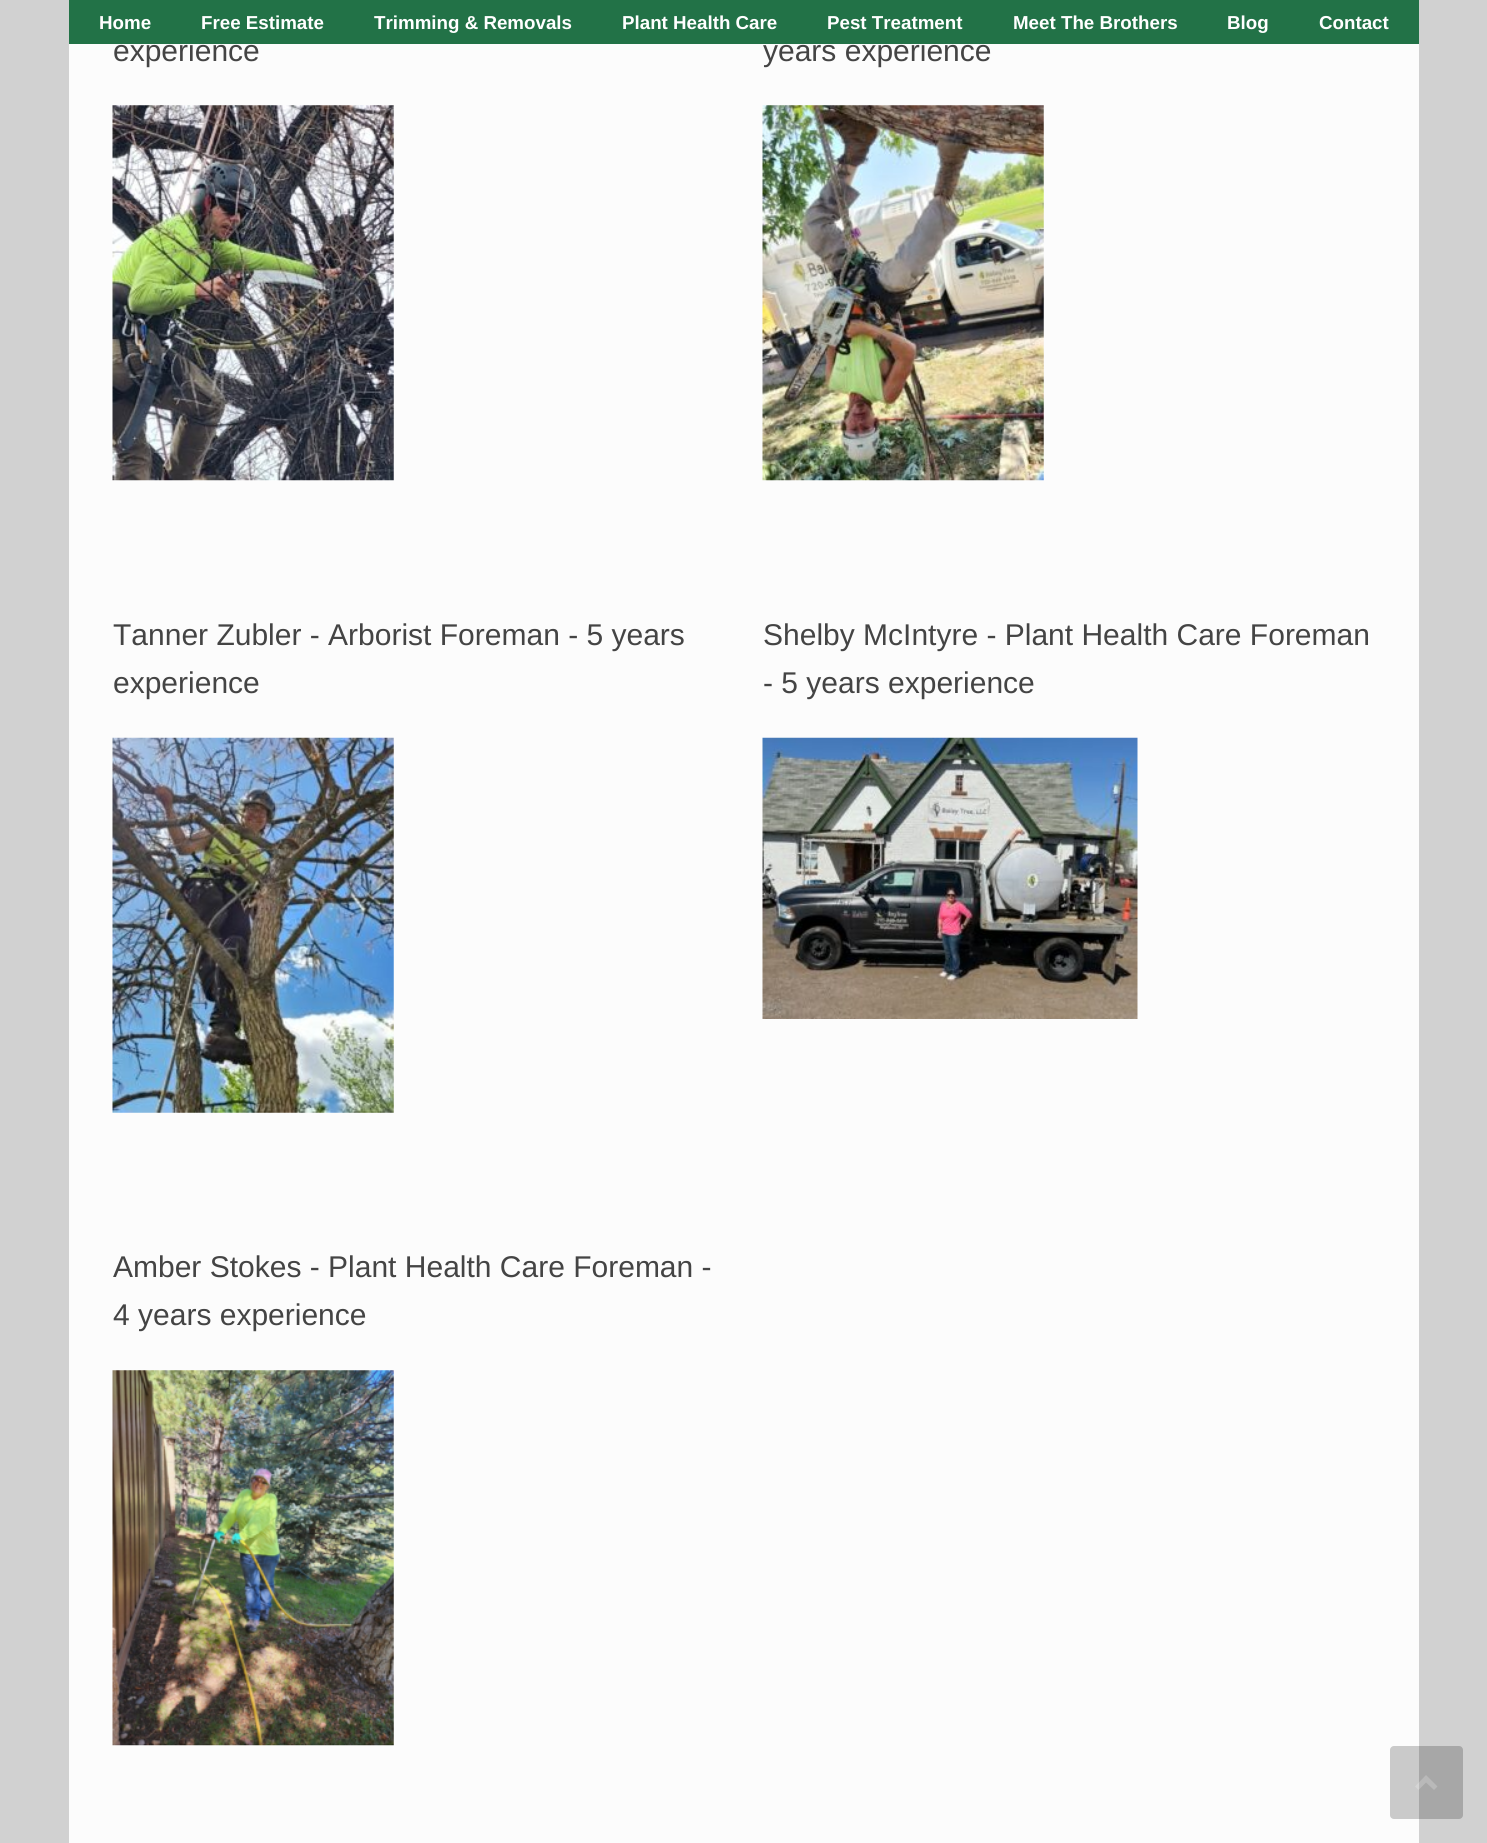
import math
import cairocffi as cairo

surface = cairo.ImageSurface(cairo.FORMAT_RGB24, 1487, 1843)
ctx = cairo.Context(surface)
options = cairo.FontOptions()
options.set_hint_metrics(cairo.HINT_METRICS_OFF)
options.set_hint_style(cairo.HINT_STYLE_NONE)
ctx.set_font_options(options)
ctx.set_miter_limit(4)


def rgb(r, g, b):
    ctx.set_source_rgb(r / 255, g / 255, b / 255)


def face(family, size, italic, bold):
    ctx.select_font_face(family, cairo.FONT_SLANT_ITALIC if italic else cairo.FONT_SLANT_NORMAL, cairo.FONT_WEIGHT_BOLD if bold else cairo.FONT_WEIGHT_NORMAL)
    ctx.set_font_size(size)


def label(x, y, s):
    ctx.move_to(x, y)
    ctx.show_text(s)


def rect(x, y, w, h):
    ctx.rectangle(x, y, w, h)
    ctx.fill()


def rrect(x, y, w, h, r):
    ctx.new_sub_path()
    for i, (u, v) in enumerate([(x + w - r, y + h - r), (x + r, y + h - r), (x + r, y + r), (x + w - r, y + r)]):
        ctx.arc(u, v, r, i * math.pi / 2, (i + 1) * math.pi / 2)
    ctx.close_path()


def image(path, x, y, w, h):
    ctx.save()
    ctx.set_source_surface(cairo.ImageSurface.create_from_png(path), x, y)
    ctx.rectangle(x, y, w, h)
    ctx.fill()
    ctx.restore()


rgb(209, 209, 209)
ctx.paint()
rgb(252, 252, 252)
rect(69, 44, 1350, 1799)
face('Liberation Sans', 30, 0, 0)
rgb(68, 68, 68)
label(113, 61, 'experience')
label(763, 61, 'years experience')
rgb(34, 114, 71)
rect(69, 0, 1350, 44)
face('Liberation Sans', 18.75, 0, 1)
rgb(255, 255, 255)
label(99, 29, 'Home')
label(201, 29, 'Free Estimate')
label(374, 29, 'Trimming & Removals')
label(622, 29, 'Plant Health Care')
label(827, 29, 'Pest Treatment')
label(1013, 29, 'Meet The Brothers')
label(1227, 29, 'Blog')
label(1319, 29, 'Contact')
image('image0.png', 112, 105, 282, 376)
image('image1.png', 762, 105, 282, 376)
face('Liberation Sans', 30, 0, 0)
rgb(68, 68, 68)
label(113, 645, 'Tanner Zubler - Arborist Foreman - 5 years')
label(113, 693, 'experience')
image('image2.png', 112, 737, 282, 376)
label(763, 645, 'Shelby McIntyre - Plant Health Care Foreman')
label(763, 693, '- 5 years experience')
image('image3.png', 762, 737, 376, 282)
label(113, 1277, 'Amber Stokes - Plant Health Care Foreman -')
label(113, 1325, '4 years experience')
image('image4.png', 112, 1370, 282, 376)
ctx.set_source_rgba(0, 0, 0, 0.2)
rrect(1390, 1746, 73, 73, 4)
ctx.fill()
ctx.set_source_rgba(1, 1, 1, 0.2)
ctx.new_path()
ctx.move_to(1437.5, 1786.5)
ctx.line_to(1426, 1775)
ctx.line_to(1415, 1786.5)
ctx.line_to(1418.5, 1790)
ctx.line_to(1426, 1782.5)
ctx.line_to(1434, 1790)
ctx.close_path()
ctx.fill()
surface.write_to_png('render.png')
